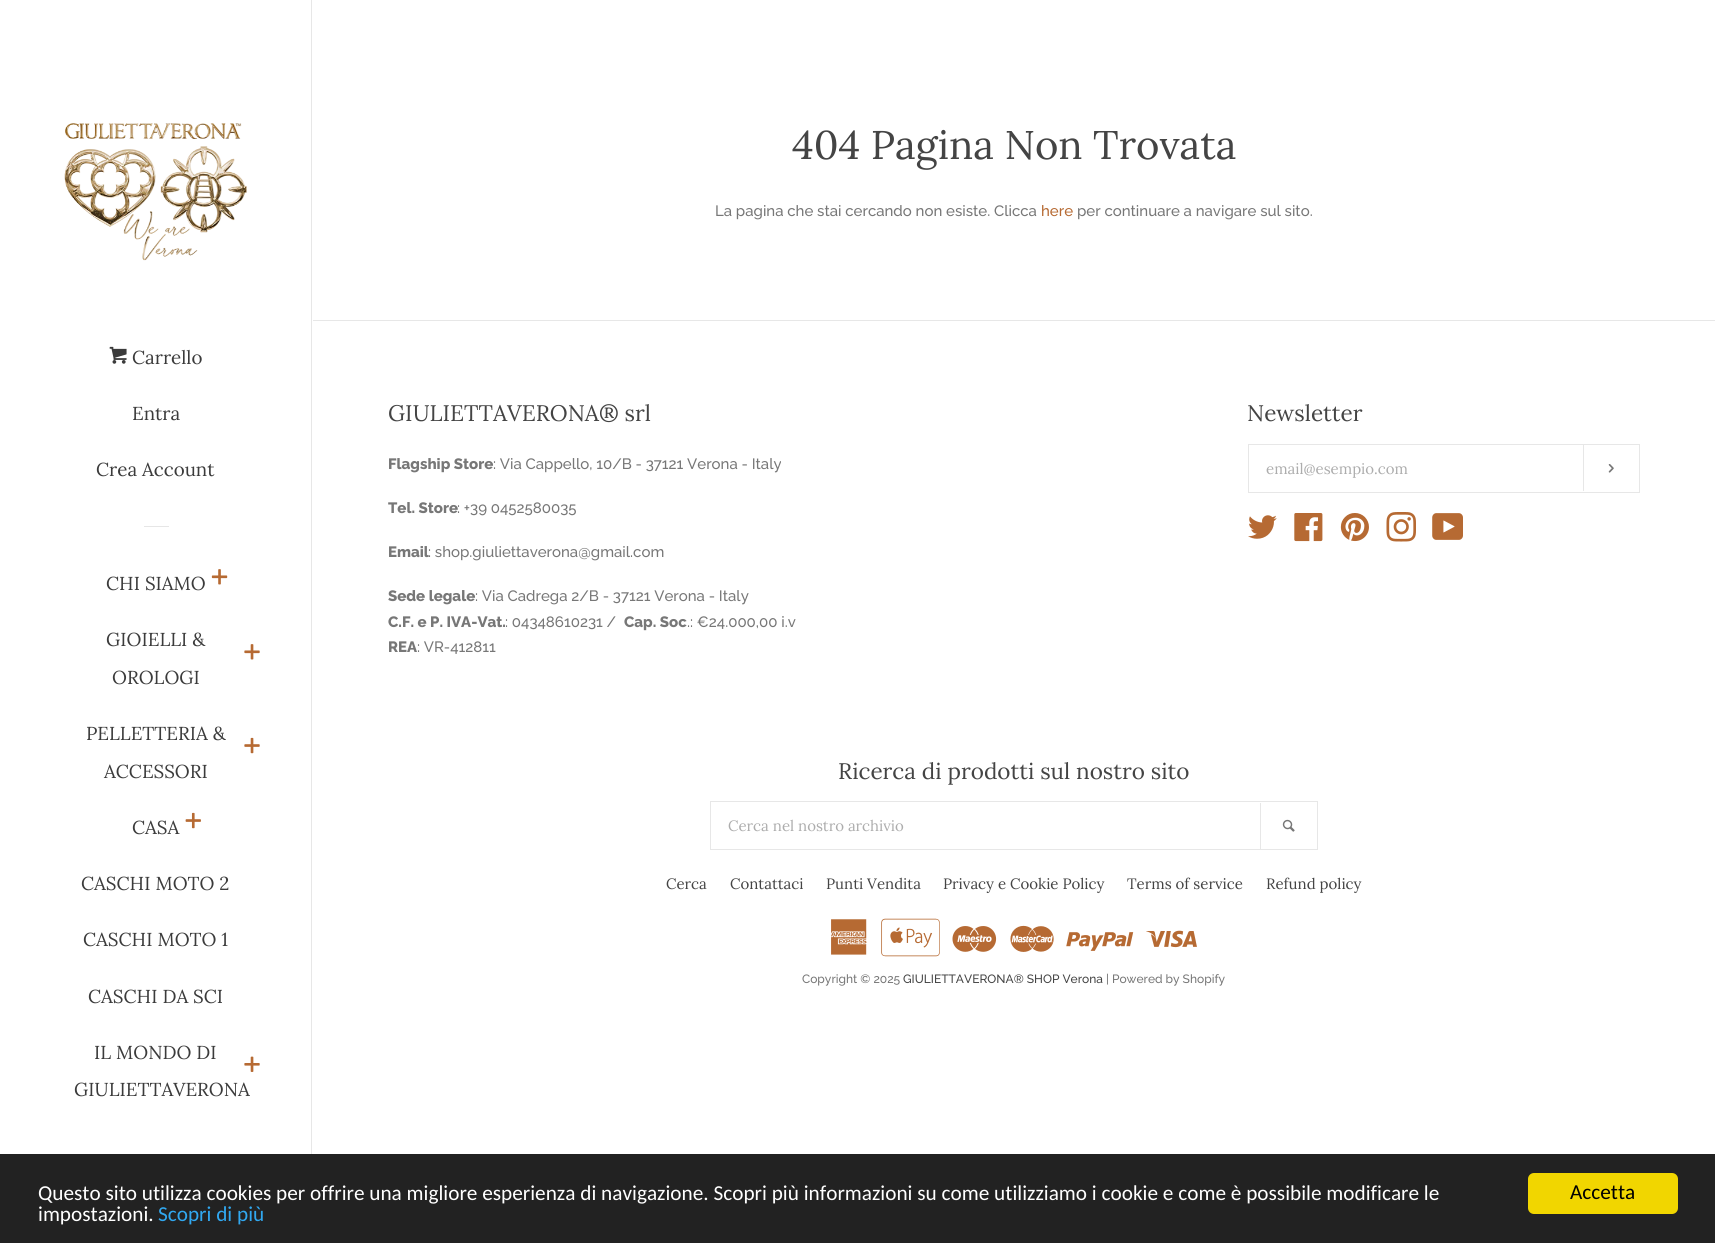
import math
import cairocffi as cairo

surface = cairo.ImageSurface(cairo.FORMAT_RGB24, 1715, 1243)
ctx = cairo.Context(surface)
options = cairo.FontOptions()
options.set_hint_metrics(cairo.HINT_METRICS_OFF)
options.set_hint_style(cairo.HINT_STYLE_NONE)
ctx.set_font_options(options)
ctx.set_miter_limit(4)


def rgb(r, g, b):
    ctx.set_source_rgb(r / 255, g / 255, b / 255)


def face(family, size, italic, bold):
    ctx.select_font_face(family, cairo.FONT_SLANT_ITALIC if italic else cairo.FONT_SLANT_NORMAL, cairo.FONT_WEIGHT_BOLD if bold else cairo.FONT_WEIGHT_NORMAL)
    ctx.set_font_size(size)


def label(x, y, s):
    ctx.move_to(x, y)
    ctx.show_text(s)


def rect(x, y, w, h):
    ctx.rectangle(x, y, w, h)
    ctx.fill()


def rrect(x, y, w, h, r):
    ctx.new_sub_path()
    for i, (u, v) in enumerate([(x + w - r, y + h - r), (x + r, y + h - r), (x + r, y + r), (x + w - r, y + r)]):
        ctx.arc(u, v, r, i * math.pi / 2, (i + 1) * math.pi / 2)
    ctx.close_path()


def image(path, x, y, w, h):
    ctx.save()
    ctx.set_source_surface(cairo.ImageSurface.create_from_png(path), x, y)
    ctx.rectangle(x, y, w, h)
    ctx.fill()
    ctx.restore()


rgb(255, 255, 255)
ctx.paint()
rgb(231, 231, 231)
rect(311, 0, 1, 1154)
image('image0.png', 64, 123, 183, 138)
image('image1.png', 109, 346, 18, 18)
face('Lora', 18.75, 0, 0)
rgb(59, 59, 59)
label(132, 364, 'Carrello')
label(132, 420, 'Entra')
label(96, 476, 'Crea Account')
rgb(230, 230, 230)
rect(144, 526, 25, 1)
rgb(59, 59, 59)
label(106, 590, 'CHI SIAMO')
image('image2.png', 211, 569, 17, 16)
label(106, 646, 'GIOIELLI &')
label(112, 684, 'OROLOGI')
image('image3.png', 244, 644, 16, 16)
label(86, 740, 'PELLETTERIA &')
label(104, 778, 'ACCESSORI')
image('image4.png', 244, 737, 16, 17)
label(132, 834, 'CASA')
image('image5.png', 185, 812, 16, 17)
label(81, 890, 'CASCHI MOTO 2')
label(83, 946, 'CASCHI MOTO 1')
label(88, 1003, 'CASCHI DA SCI')
label(94, 1059, 'IL MONDO DI')
label(74, 1096, 'GIULIETTAVERONA')
image('image6.png', 244, 1056, 16, 16)
face('Lora', 40, 0, 0)
rgb(68, 68, 68)
label(792, 159, '404 Pagina Non Trovata')
face('Raleway Medium', 15, 0, 0)
rgb(119, 119, 119)
label(715, 216, 'La pagina che stai cercando non esiste. Clicca')
rgb(182, 106, 51)
label(1041, 216, 'here')
rgb(119, 119, 119)
label(1077, 216, 'per continuare a navigare sul sito.')
rgb(231, 231, 231)
rect(313, 320, 1402, 1)
face('Lora', 22.5, 0, 0)
rgb(68, 68, 68)
label(388, 421, 'GIULIETTAVERONA® srl')
face('Raleway ExtraBold', 15, 0, 0)
rgb(119, 119, 119)
label(388, 469, 'Flagship Store')
face('Raleway Medium', 15, 0, 0)
label(493, 469, ': Via Cappello, 10/B - 37121 Verona - Italy')
face('Raleway ExtraBold', 15, 0, 0)
label(388, 513, 'Tel. Store')
face('Raleway Medium', 15, 0, 0)
label(457, 513, ': +39 0452580035')
face('Raleway ExtraBold', 15, 0, 0)
label(388, 557, 'Email')
face('Raleway Medium', 15, 0, 0)
label(428, 557, ': shop.giuliettaverona@gmail.com')
face('Raleway ExtraBold', 15, 0, 0)
label(388, 601, 'Sede legale')
face('Raleway Medium', 15, 0, 0)
label(475, 601, ': Via Cadrega 2/B - 37121 Verona - Italy')
face('Raleway ExtraBold', 15, 0, 0)
label(388, 627, 'C.F. e P. IVA-Vat.')
face('Raleway Medium', 15, 0, 0)
label(505, 627, ': 04348610231 /')
face('Raleway ExtraBold', 15, 0, 0)
label(624, 627, 'Cap. Soc')
face('Raleway Medium', 15, 0, 0)
label(687, 627, '.: €24.000,00 i.v')
face('Raleway ExtraBold', 15, 0, 0)
label(388, 652, 'REA')
face('Raleway Medium', 15, 0, 0)
label(417, 652, ': VR-412811')
face('Lora', 22.5, 0, 0)
rgb(68, 68, 68)
label(1247, 421, 'Newsletter')
ctx.rectangle(1248.5, 444.5, 391, 48)
rgb(231, 231, 231)
ctx.set_line_width(1)
ctx.stroke()
rect(1583, 445, 1, 46)
face('Lora', 15, 0, 0)
rgb(173, 173, 173)
label(1266, 474, 'email@esempio.com')
image('image7.png', 1608, 464, 6, 9)
image('image8.png', 1248, 515, 29, 24)
image('image9.png', 1294, 513, 29, 29)
image('image10.png', 1340, 513, 29, 29)
image('image11.png', 1386, 512, 30, 30)
image('image12.png', 1432, 513, 31, 27)
face('Lora', 22.5, 0, 0)
rgb(68, 68, 68)
label(838, 779, 'Ricerca di prodotti sul nostro sito')
ctx.rectangle(710.5, 801.5, 607, 48)
rgb(231, 231, 231)
ctx.stroke()
rect(1260, 803, 1, 46)
face('Lora', 15, 0, 0)
rgb(173, 173, 173)
label(728, 831, 'Cerca nel nostro archivio')
image('image13.png', 1282, 819, 13, 13)
rgb(68, 68, 68)
label(666, 889, 'Cerca')
label(730, 889, 'Contattaci')
label(826, 889, 'Punti Vendita')
label(943, 889, 'Privacy e Cookie Policy')
label(1127, 889, 'Terms of service')
label(1266, 889, 'Refund policy')
image('image14.png', 831, 919, 36, 36)
image('image15.png', 881, 918, 59, 39)
image('image16.png', 952, 926, 45, 26)
image('image17.png', 1010, 925, 44, 27)
image('image18.png', 1066, 932, 68, 19)
image('image19.png', 1146, 930, 51, 18)
face('Raleway Medium', 12, 0, 0)
rgb(119, 119, 119)
label(802, 983, 'Copyright © 2025')
rgb(68, 68, 68)
label(903, 983, 'GIULIETTAVERONA® SHOP Verona')
rgb(119, 119, 119)
label(1106, 983, '| Powered by Shopify')
rgb(34, 34, 34)
rect(0, 1154, 1715, 89)
face('Carlito', 21.25, 0, 0)
rgb(255, 255, 255)
label(38, 1200, 'Questo sito utilizza cookies per offrire una migliore esperienza di navigazione. Scopri più informazioni su come utilizziamo i cookie e come è possibile modificare le')
label(38, 1221, 'impostazioni.')
rgb(49, 168, 240)
label(158, 1221, 'Scopri di più')
rgb(241, 214, 0)
rrect(1528, 1173, 150, 41, 6)
ctx.fill()
rgb(0, 0, 0)
label(1570, 1199, 'Accetta')
surface.write_to_png('render.png')
